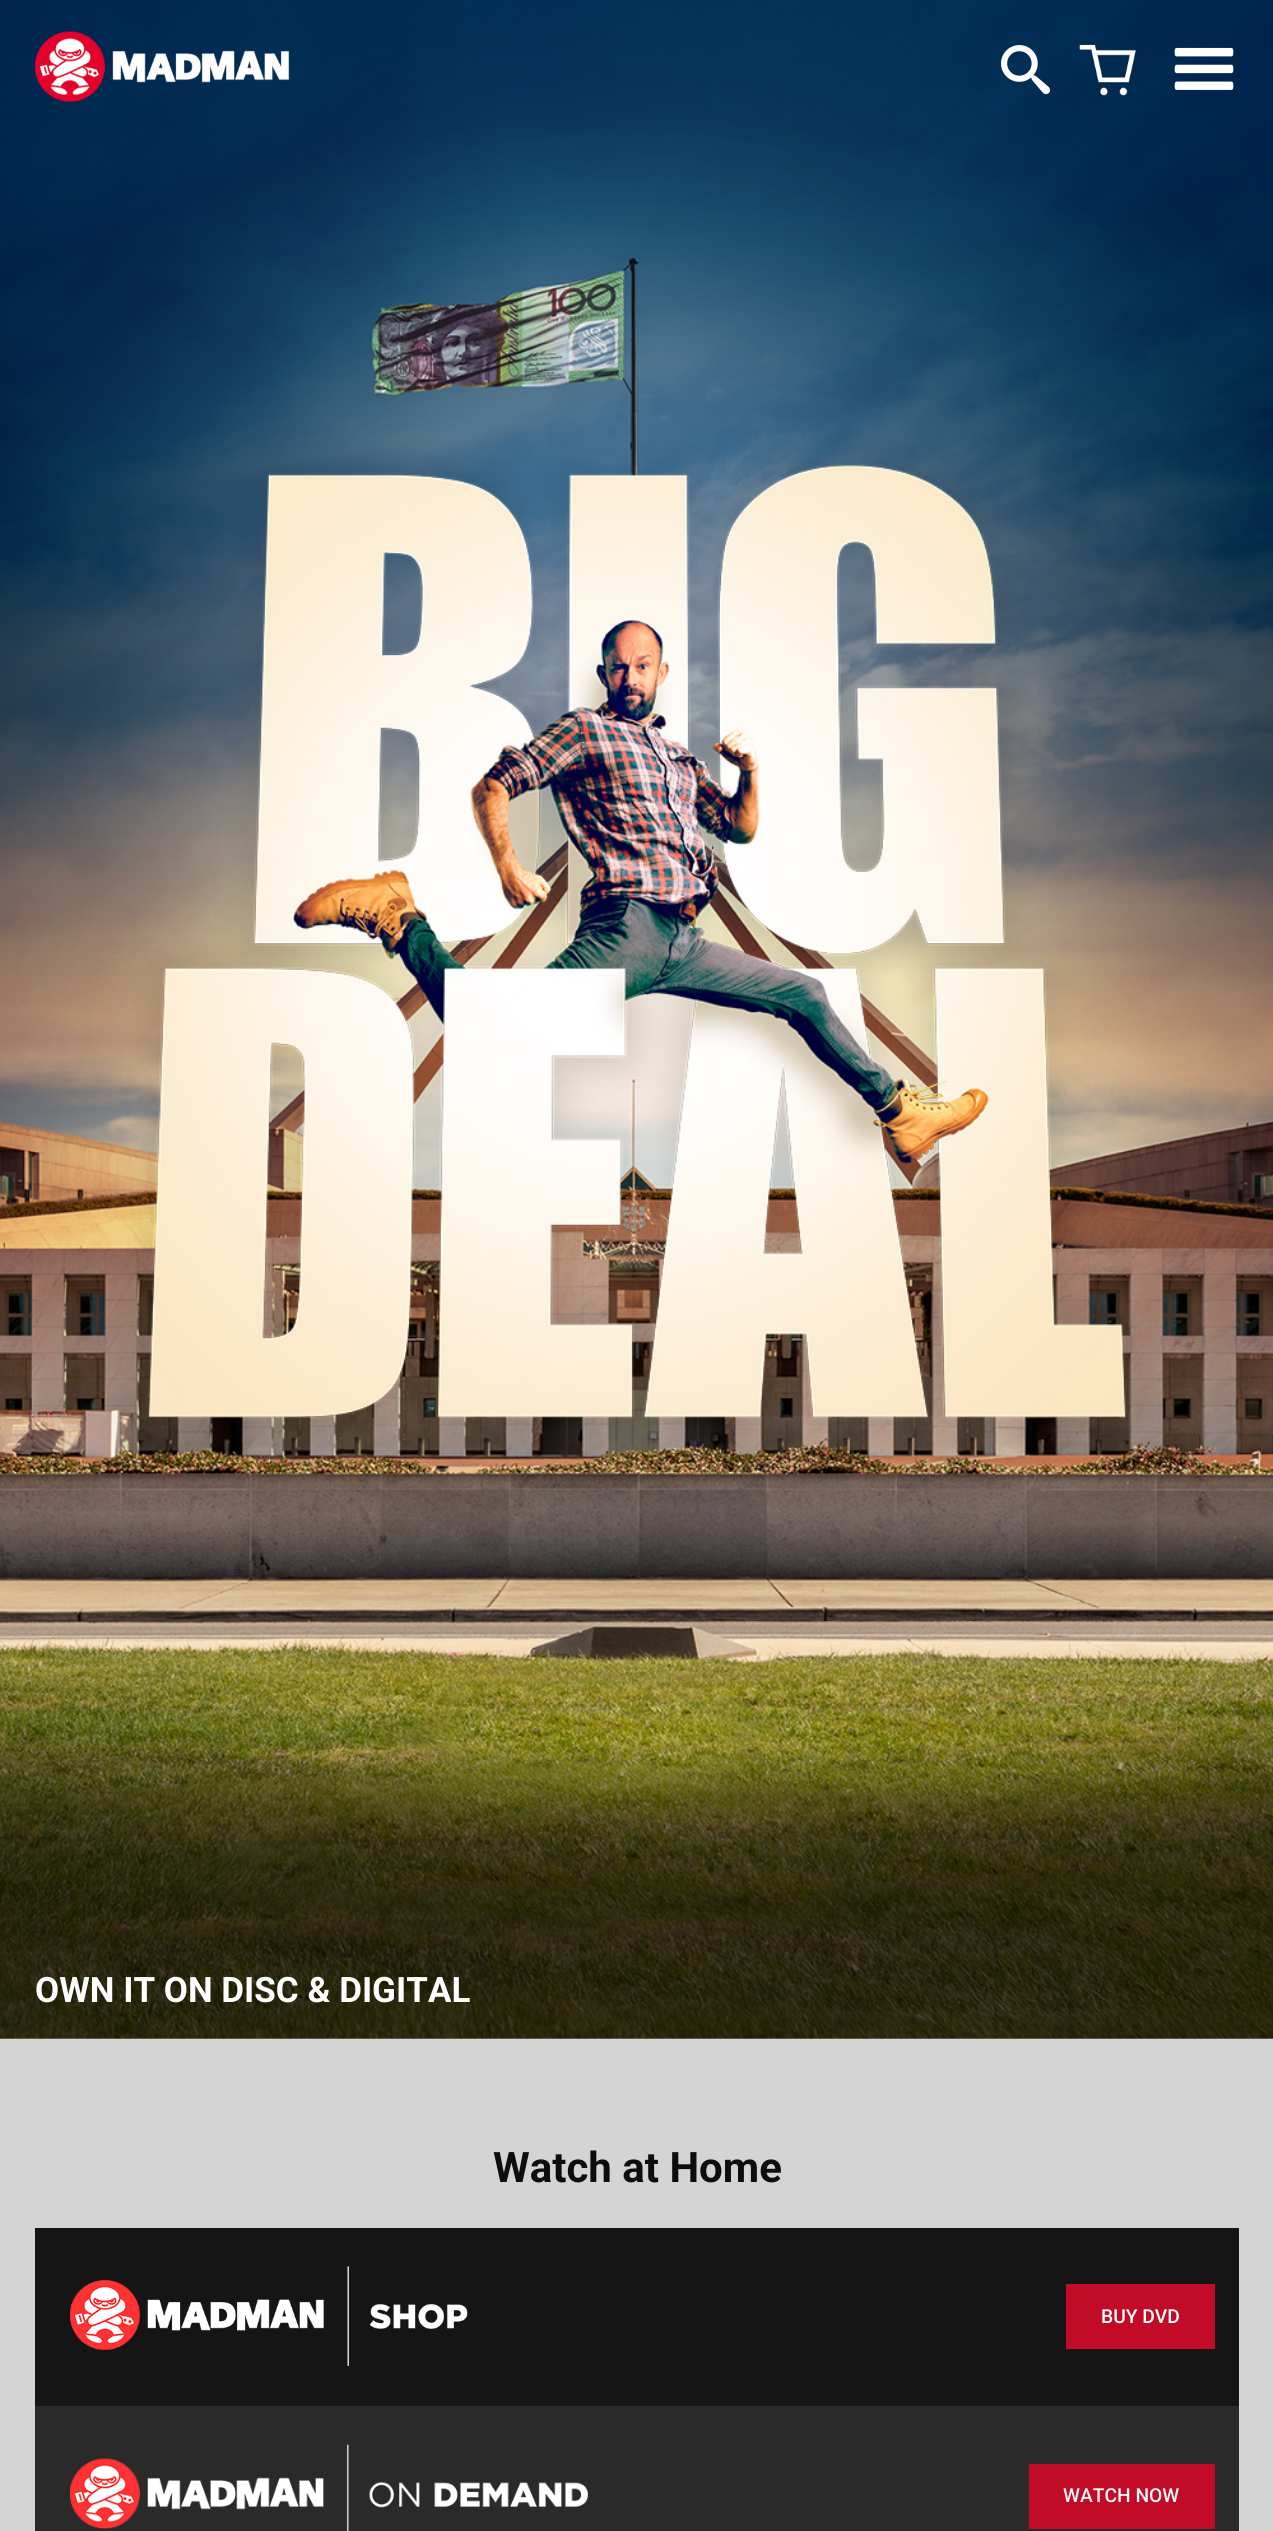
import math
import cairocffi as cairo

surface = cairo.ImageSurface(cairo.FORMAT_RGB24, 1273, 2531)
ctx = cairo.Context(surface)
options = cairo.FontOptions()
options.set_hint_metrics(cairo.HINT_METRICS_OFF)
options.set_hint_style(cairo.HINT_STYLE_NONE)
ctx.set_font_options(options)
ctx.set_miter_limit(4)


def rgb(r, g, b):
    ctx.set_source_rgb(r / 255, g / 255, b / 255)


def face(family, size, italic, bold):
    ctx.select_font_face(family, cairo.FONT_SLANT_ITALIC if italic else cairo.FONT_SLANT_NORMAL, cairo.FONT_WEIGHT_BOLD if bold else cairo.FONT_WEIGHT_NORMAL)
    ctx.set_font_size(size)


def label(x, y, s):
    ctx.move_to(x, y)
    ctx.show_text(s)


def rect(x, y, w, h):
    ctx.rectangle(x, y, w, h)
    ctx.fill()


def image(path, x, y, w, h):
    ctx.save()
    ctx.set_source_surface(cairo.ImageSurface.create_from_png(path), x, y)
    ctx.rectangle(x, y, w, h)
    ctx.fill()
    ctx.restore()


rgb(255, 255, 255)
ctx.paint()
image('image4.png', 0, 0, 1273, 2039)
image('image0.png', 35, 31, 255, 71)
image('image1.png', 1001, 45, 49, 50)
image('image2.png', 1079, 44, 57, 52)
image('image3.png', 1174, 47, 60, 43)
face('Roboto', 35, 0, 1)
rgb(255, 255, 255)
label(35, 2002, 'OWN IT ON DISC & DIGITAL')
rgb(212, 212, 212)
rect(0, 2039, 1273, 492)
face('Roboto', 42, 0, 1)
rgb(13, 13, 13)
label(493, 2182, 'Watch at Home')
rgb(21, 21, 21)
rect(35, 2228, 1204, 178)
image('image5.png', 70, 2266, 398, 100)
rgb(193, 11, 39)
rect(1066, 2284, 149, 65)
face('Roboto Medium', 19.25, 0, 0)
rgb(255, 255, 255)
label(1101, 2323, 'BUY DVD')
rgb(42, 42, 42)
rect(35, 2406, 1204, 125)
image('image6.png', 70, 2444, 518, 87)
rgb(193, 11, 39)
rect(1029, 2464, 186, 65)
rgb(248, 248, 248)
label(1063, 2502, 'WATCH NOW')
surface.write_to_png('render.png')
